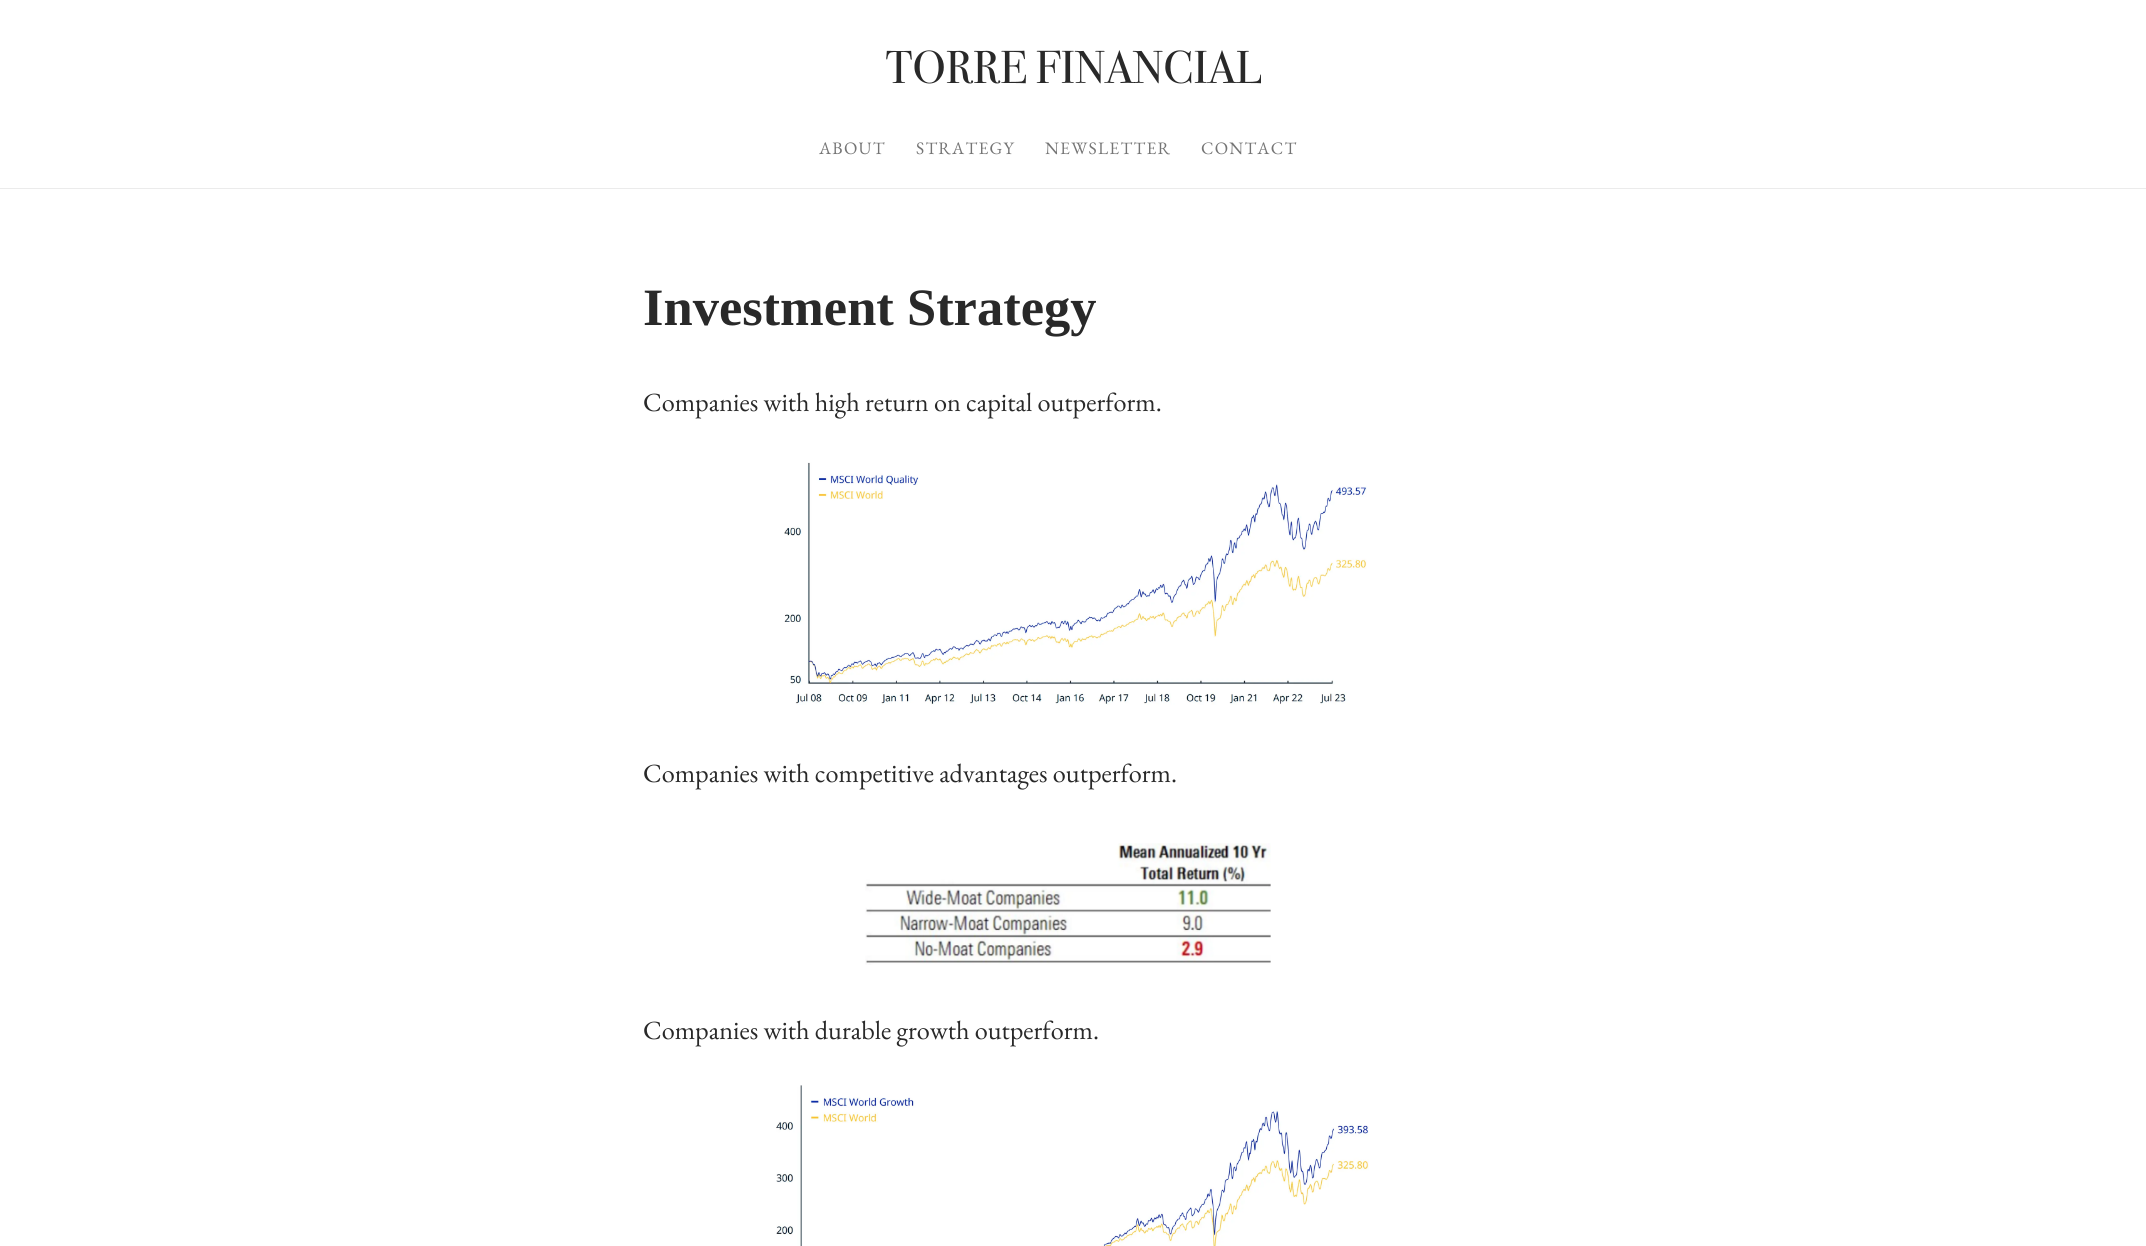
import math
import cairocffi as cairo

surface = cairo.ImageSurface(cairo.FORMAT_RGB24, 2146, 1246)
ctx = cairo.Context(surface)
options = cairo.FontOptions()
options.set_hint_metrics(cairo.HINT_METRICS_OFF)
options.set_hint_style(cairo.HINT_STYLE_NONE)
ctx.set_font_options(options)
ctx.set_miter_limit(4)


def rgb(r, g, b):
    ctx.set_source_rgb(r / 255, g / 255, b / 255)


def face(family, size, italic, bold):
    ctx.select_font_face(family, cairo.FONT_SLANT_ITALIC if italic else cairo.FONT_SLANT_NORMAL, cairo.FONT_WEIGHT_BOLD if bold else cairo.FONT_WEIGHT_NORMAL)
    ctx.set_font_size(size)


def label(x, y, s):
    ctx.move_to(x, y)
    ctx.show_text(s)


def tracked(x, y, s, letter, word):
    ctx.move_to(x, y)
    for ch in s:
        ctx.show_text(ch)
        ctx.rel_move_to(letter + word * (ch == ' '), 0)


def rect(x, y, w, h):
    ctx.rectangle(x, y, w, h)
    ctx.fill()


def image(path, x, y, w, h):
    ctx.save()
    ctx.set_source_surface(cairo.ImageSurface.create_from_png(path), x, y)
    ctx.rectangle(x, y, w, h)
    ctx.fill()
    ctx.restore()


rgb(255, 255, 255)
ctx.paint()
rgb(235, 235, 235)
rect(0, 188, 2146, 1)
image('image0.png', 886, 50, 375, 34)
face('EB Garamond', 17.5, 0, 0)
rgb(117, 117, 117)
tracked(819, 154, 'ABOUT', 1.25, 0)
tracked(916, 154, 'STRATEGY', 1.25, 0)
tracked(1045, 154, 'NEWSLETTER', 1.25, 0)
tracked(1201, 154, 'CONTACT', 1.25, 0)
face('Liberation Serif', 52.5, 0, 1)
rgb(41, 41, 41)
label(643, 325, 'Investment Strategy')
face('EB Garamond', 26.25, 0, 0)
label(643, 411, 'Companies with high return on capital outperform.')
image('image1.png', 784, 462, 583, 243)
label(643, 782, 'Companies with competitive advantages outperform.')
image('image2.png', 865, 843, 406, 122)
label(643, 1039, 'Companies with durable growth outperform.')
image('image3.png', 776, 1085, 593, 161)
surface.write_to_png('render.png')
